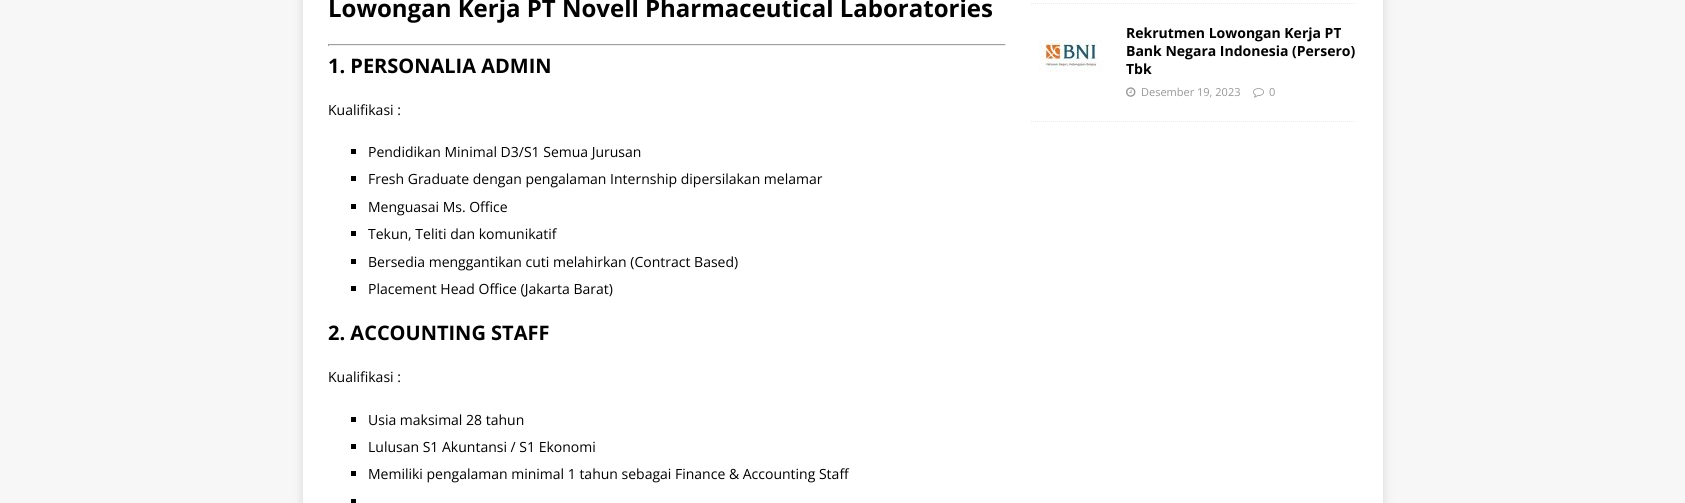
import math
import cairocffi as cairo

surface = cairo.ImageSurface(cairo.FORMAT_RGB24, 1685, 503)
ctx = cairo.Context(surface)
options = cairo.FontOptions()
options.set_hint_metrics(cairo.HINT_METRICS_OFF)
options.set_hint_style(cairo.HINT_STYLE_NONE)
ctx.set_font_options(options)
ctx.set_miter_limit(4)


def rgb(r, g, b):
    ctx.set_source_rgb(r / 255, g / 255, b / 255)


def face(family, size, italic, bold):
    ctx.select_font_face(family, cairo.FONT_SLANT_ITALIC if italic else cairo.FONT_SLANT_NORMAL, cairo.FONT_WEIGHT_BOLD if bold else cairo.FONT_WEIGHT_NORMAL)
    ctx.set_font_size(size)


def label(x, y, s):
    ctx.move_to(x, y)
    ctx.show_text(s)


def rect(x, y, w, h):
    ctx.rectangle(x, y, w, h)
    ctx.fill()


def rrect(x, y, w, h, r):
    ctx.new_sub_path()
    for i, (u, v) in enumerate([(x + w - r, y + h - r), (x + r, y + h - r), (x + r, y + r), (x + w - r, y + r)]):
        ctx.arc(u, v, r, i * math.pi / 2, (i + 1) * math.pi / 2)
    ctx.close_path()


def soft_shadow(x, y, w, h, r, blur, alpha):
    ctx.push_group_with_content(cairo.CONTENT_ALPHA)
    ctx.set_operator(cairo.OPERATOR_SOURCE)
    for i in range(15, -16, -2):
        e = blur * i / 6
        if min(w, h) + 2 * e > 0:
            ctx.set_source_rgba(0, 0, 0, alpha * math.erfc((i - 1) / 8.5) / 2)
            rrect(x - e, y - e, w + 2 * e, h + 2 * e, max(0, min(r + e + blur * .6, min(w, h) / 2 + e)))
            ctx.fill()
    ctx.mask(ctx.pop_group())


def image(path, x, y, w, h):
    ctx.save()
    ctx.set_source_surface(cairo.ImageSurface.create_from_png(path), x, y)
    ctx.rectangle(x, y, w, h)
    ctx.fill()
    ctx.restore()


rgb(247, 247, 247)
ctx.paint()
rgb(50, 50, 50)
soft_shadow(303, -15, 1080, 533, 0, 5, 0.17)
rgb(255, 255, 255)
rect(303, 0, 1080, 503)
face('Open Sans', 24, 0, 1)
rgb(0, 0, 0)
label(328, 17, 'Lowongan Kerja PT Novell Pharmaceutical Laboratories')
rgb(159, 159, 159)
rect(328, 44, 678, 1)
rgb(238, 238, 238)
rect(1005, 44, 1, 2)
rect(328, 45, 678, 1)
rgb(159, 159, 159)
rect(328, 44, 1, 2)
face('Open Sans', 20, 0, 1)
rgb(0, 0, 0)
label(328, 73, '1. PERSONALIA ADMIN')
face('Open Sans', 14, 0, 0)
label(328, 115, 'Kualifikasi :')
rect(351, 149, 5, 5)
label(368, 157, 'Pendidikan Minimal D3/S1 Semua Jurusan')
rect(351, 176, 5, 5)
label(368, 184, 'Fresh Graduate dengan pengalaman Internship dipersilakan melamar')
rect(351, 204, 5, 5)
label(368, 212, 'Menguasai Ms. Office')
rect(351, 231, 5, 5)
label(368, 239, 'Tekun, Teliti dan komunikatif')
rect(351, 259, 5, 5)
label(368, 267, 'Bersedia menggantikan cuti melahirkan (Contract Based)')
rect(351, 286, 5, 5)
label(368, 294, 'Placement Head Office (Jakarta Barat)')
face('Open Sans', 20, 0, 1)
label(328, 340, '2. ACCOUNTING STAFF')
face('Open Sans', 14, 0, 0)
label(328, 382, 'Kualifikasi :')
rect(351, 417, 5, 5)
label(368, 425, 'Usia maksimal 28 tahun')
rect(351, 444, 5, 5)
label(368, 452, 'Lulusan S1 Akuntansi / S1 Ekonomi')
rect(351, 471, 5, 5)
label(368, 479, 'Memiliki pengalaman minimal 1 tahun sebagai Finance & Accounting Staff')
rect(351, 499, 5, 4)
ctx.new_path()
ctx.move_to(1031, 3.5)
ctx.line_to(1357, 3.5)
rgb(235, 235, 235)
ctx.set_line_width(1)
ctx.set_dash([1, 1])
ctx.stroke()
ctx.new_path()
ctx.move_to(1031, 121.5)
ctx.line_to(1357, 121.5)
ctx.stroke()
image('image0.png', 1039, 39, 64, 33)
face('Open Sans', 14, 0, 1)
rgb(0, 0, 0)
label(1126, 38, 'Rekrutmen Lowongan Kerja PT')
label(1126, 56, 'Bank Negara Indonesia (Persero)')
label(1126, 74, 'Tbk')
image('image1.png', 1126, 87, 10, 10)
face('Open Sans', 11, 0, 0)
rgb(151, 151, 151)
label(1141, 96, 'Desember 19, 2023')
image('image2.png', 1253, 88, 11, 10)
label(1269, 96, '0')
surface.write_to_png('render.png')
